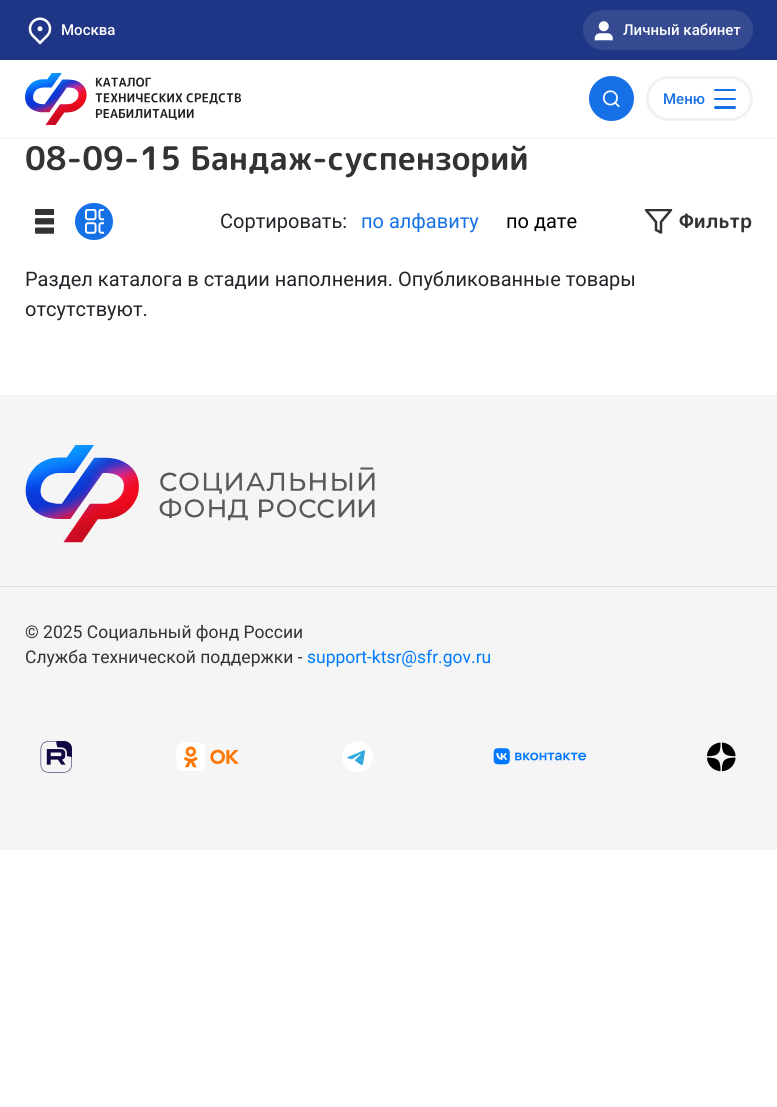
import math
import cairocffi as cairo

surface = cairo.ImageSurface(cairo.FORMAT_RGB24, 777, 1107)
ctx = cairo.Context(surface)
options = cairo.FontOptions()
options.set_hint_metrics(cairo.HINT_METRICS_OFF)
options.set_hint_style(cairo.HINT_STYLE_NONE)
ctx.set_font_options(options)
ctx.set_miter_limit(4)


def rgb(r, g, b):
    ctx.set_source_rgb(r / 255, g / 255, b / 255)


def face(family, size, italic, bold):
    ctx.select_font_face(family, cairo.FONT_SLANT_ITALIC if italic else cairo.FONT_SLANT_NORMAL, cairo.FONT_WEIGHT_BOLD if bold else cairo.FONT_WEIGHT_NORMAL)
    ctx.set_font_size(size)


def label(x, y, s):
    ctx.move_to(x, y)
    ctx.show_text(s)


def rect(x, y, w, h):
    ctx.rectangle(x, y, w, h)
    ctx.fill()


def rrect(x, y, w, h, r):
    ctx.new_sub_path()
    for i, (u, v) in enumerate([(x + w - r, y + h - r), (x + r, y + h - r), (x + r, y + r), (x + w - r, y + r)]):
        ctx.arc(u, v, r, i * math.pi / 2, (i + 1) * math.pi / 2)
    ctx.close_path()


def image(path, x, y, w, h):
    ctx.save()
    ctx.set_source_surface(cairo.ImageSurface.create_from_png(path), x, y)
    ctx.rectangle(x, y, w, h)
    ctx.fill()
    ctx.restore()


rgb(255, 255, 255)
ctx.paint()
rgb(245, 245, 245)
rect(0, 138, 777, 1)
rgb(30, 54, 133)
rect(0, 0, 777, 60)
image('image0.png', 28, 17, 24, 28)
face('Roboto Medium', 15, 0, 0)
rgb(255, 255, 255)
label(61, 35, 'Москва')
rgb(53, 74, 145)
rrect(583, 10, 170, 40, 20)
ctx.fill()
image('image1.png', 594, 21, 19, 20)
rgb(255, 255, 255)
label(623, 35, 'Личный кабинет')
image('image2.png', 25, 73, 216, 52)
rgb(23, 113, 230)
ctx.arc(611.5, 98.5, 22.5, 0, 2 * math.pi)
ctx.fill()
image('image3.png', 602, 90, 18, 18)
rrect(647.5, 77.5, 104, 42, 21)
rgb(241, 241, 241)
ctx.set_line_width(3)
ctx.stroke()
rgb(23, 113, 230)
label(663, 104, 'Меню')
rrect(714, 89, 22, 2, 1)
ctx.fill()
rrect(714, 98, 22, 2, 1)
ctx.fill()
rrect(714, 106, 22, 3, 1.5)
ctx.fill()
face('Rounded Mplus 1c', 32.5, 0, 1)
rgb(51, 51, 51)
label(25, 170, '08-09-15 Бандаж-суспензорий')
image('image4.png', 35, 209, 19, 25)
rgb(23, 113, 230)
rrect(75, 203, 38, 37, 18.5)
ctx.fill()
image('image5.png', 85, 209, 19, 25)
face('Roboto', 20, 0, 0)
rgb(33, 37, 41)
label(220, 228, 'Сортировать:')
rgb(23, 113, 230)
label(361, 228, 'по алфавиту')
rgb(0, 0, 0)
label(506, 228, 'по дате')
ctx.save()
ctx.rectangle(645, 209, 28, 25)
ctx.clip()
ctx.new_path()
ctx.move_to(671, 210)
ctx.line_to(646, 210)
ctx.line_to(656, 222)
ctx.line_to(656, 230)
ctx.line_to(661, 232.5)
ctx.line_to(661, 222)
ctx.close_path()
rgb(51, 51, 51)
ctx.set_line_width(2.5)
ctx.set_line_cap(cairo.LINE_CAP_ROUND)
ctx.set_line_join(cairo.LINE_JOIN_ROUND)
ctx.stroke()
ctx.restore()
face('Rounded Mplus 1c', 20, 0, 1)
rgb(51, 51, 51)
label(679, 228, 'Фильтр')
face('Roboto', 20, 0, 0)
rgb(33, 37, 41)
label(25, 286, 'Раздел каталога в стадии наполнения. Опубликованные товары')
label(25, 316, 'отсутствуют.')
rgb(245, 245, 246)
rect(0, 395, 777, 455)
image('image6.png', 25, 445, 350, 98)
rgb(221, 221, 221)
rect(0, 586, 777, 1)
face('Roboto', 17.5, 0, 0)
rgb(51, 51, 51)
label(25, 638, '© 2025 Социальный фонд России')
label(25, 663, 'Служба технической поддержки -')
rgb(0, 123, 255)
label(307, 663, 'support-ktsr@sfr.gov.ru')
image('image7.png', 40, 741, 32, 32)
image('image8.png', 176, 742, 63, 29)
image('image9.png', 342, 741, 31, 32)
image('image10.png', 493, 748, 94, 17)
image('image11.png', 707, 742, 29, 30)
surface.write_to_png('render.png')
